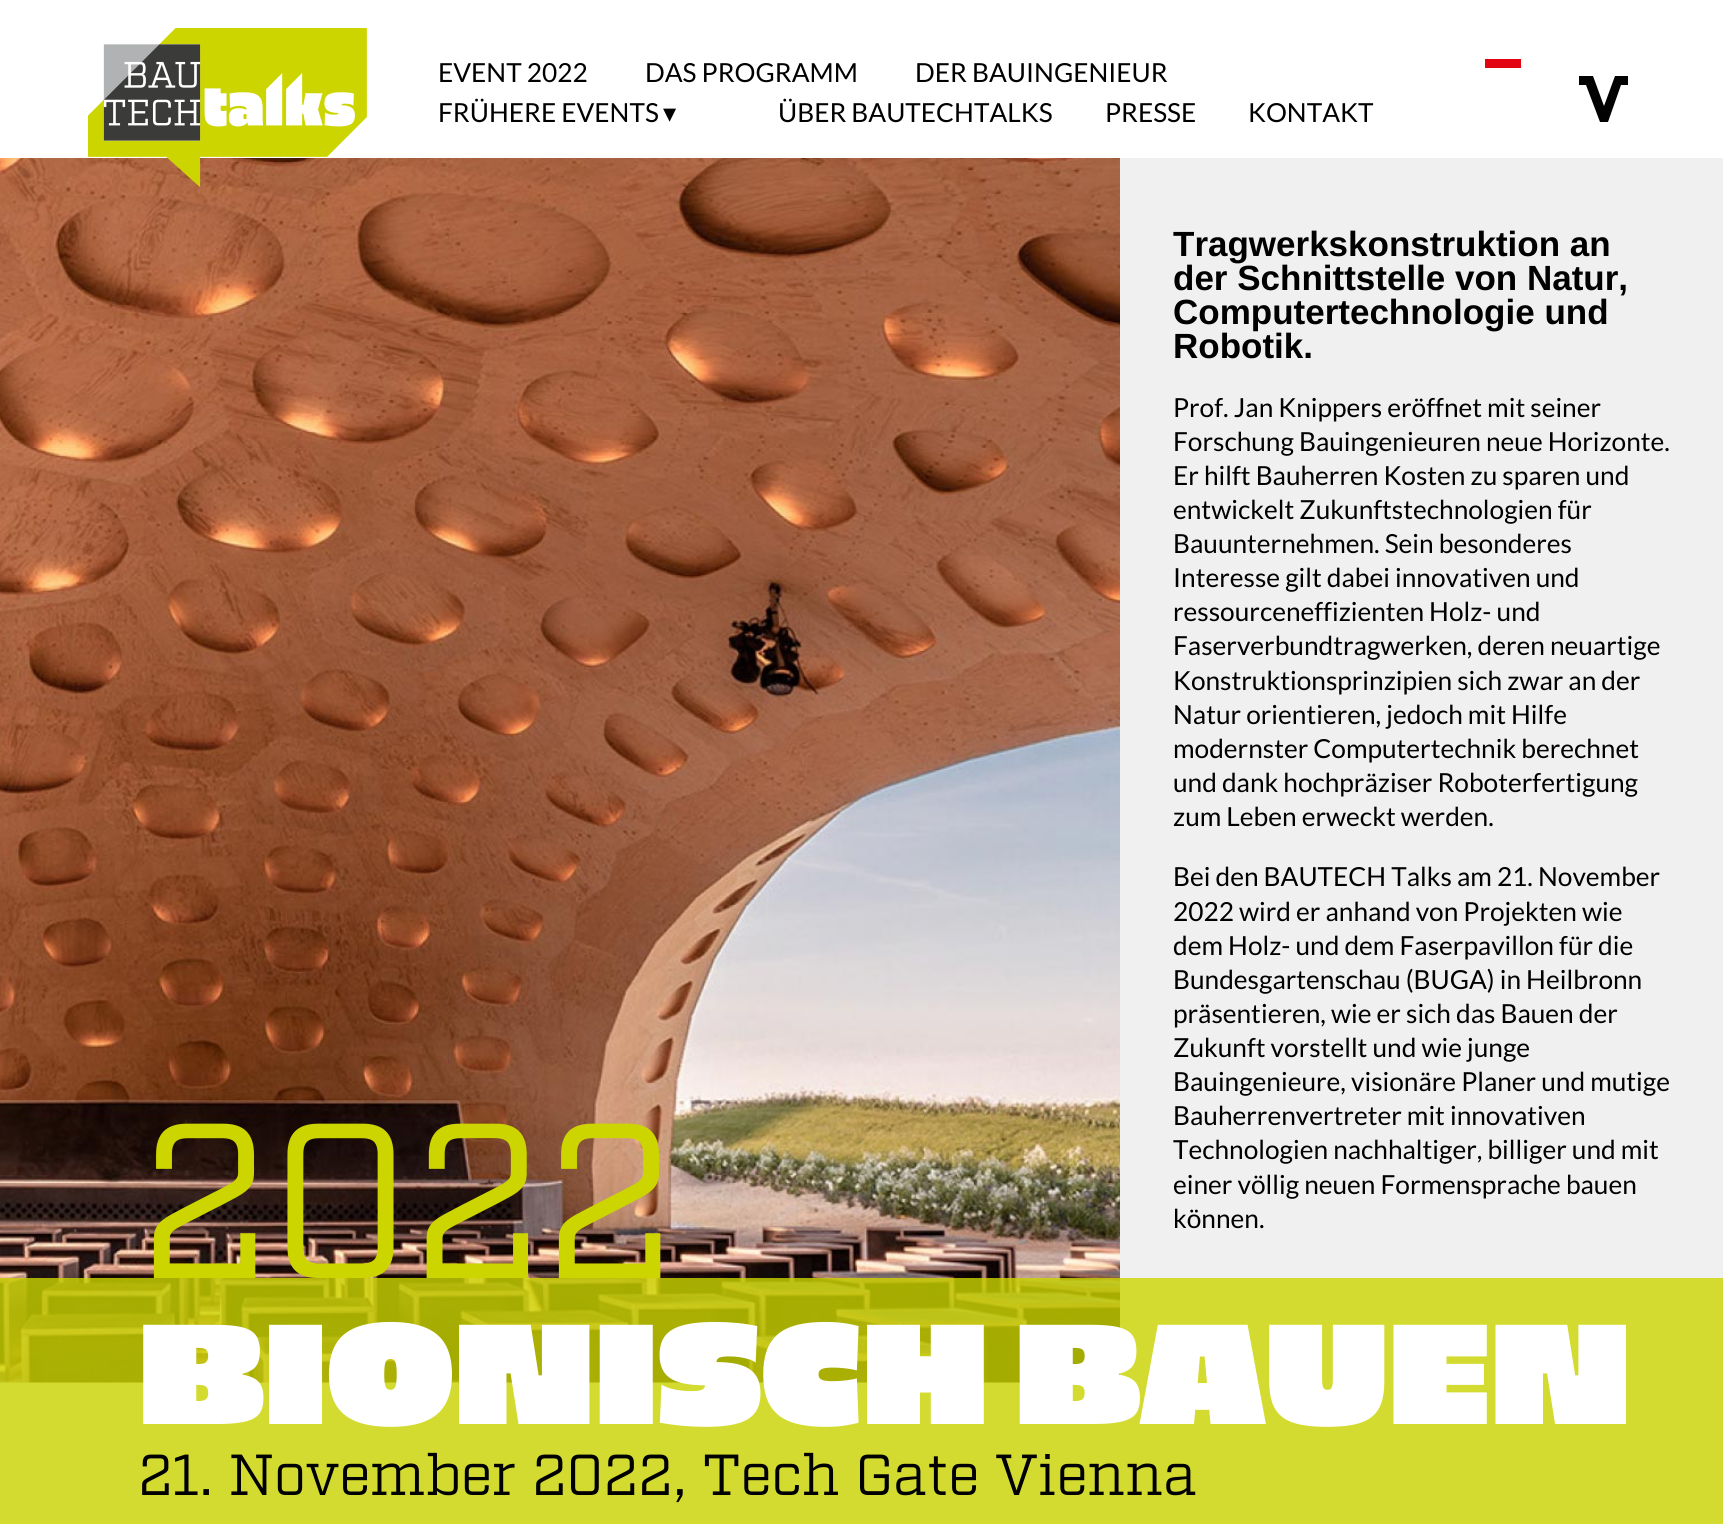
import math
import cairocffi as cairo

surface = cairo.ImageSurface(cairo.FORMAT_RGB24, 1723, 1524)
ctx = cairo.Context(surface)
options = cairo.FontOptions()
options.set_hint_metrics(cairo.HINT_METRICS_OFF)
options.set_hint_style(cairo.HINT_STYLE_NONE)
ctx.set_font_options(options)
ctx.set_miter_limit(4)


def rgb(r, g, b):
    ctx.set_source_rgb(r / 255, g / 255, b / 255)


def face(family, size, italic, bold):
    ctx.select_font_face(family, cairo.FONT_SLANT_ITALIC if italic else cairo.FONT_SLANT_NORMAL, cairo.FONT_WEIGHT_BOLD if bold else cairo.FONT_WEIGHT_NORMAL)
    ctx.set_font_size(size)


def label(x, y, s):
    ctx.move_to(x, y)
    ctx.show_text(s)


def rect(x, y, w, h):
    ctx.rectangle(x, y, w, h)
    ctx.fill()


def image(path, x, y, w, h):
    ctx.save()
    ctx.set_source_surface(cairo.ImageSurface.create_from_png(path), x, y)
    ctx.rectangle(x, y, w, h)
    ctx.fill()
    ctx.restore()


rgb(240, 240, 240)
ctx.paint()
rgb(255, 255, 255)
rect(0, 0, 1723, 158)
image('image1.png', 0, 158, 1120, 1225)
image('image0.png', 88, 28, 279, 159)
face('Lato', 26.25, 0, 0)
rgb(0, 0, 0)
label(438, 82, 'EVENT 2022')
label(645, 82, 'DAS PROGRAMM')
label(915, 82, 'DER BAUINGENIEUR')
label(438, 122, 'FRÜHERE EVENTS')
face('DejaVu Sans', 26.25, 0, 0)
label(663, 122, '▾')
face('Lato', 26.25, 0, 0)
label(778, 122, 'ÜBER BAUTECHTALKS')
label(1105, 122, 'PRESSE')
label(1248, 122, 'KONTAKT')
rgb(228, 3, 16)
rect(1485, 59, 36, 9)
rgb(1, 2, 1)
ctx.new_path()
ctx.move_to(1615, 76)
ctx.line_to(1604, 106)
ctx.line_to(1593, 76)
ctx.line_to(1579, 76)
ctx.line_to(1579, 85)
ctx.line_to(1586, 85)
ctx.line_to(1600, 122)
ctx.line_to(1608, 122)
ctx.line_to(1621, 85)
ctx.line_to(1628, 85)
ctx.line_to(1628, 76)
ctx.close_path()
ctx.fill()
face('Liberation Sans', 35, 0, 1)
rgb(0, 0, 0)
label(1173, 256, 'Tragwerkskonstruktion an')
label(1173, 290, 'der Schnittstelle von Natur,')
label(1173, 324, 'Computertechnologie und')
label(1173, 358, 'Robotik.')
face('Lato', 26.25, 0, 0)
label(1173, 417, 'Prof. Jan Knippers eröffnet mit seiner')
label(1173, 451, 'Forschung Bauingenieuren neue Horizonte.')
label(1173, 485, 'Er hilft Bauherren Kosten zu sparen und')
label(1173, 519, 'entwickelt Zukunftstechnologien für')
label(1173, 553, 'Bauunternehmen. Sein besonderes')
label(1173, 587, 'Interesse gilt dabei innovativen und')
label(1173, 621, 'ressourceneffizienten Holz- und')
label(1173, 655, 'Faserverbundtragwerken, deren neuartige')
label(1173, 690, 'Konstruktionsprinzipien sich zwar an der')
label(1173, 724, 'Natur orientieren, jedoch mit Hilfe')
label(1173, 758, 'modernster Computertechnik berechnet')
label(1173, 792, 'und dank hochpräziser Roboterfertigung')
label(1173, 826, 'zum Leben erweckt werden.')
label(1173, 886, 'Bei den BAUTECH Talks am 21. November')
label(1173, 921, '2022 wird er anhand von Projekten wie')
label(1173, 955, 'dem Holz- und dem Faserpavillon für die')
label(1173, 989, 'Bundesgartenschau (BUGA) in Heilbronn')
label(1173, 1023, 'präsentieren, wie er sich das Bauen der')
label(1173, 1057, 'Zukunft vorstellt und wie junge')
label(1173, 1091, 'Bauingenieure, visionäre Planer und mutige')
label(1173, 1125, 'Bauherrenvertreter mit innovativen')
label(1173, 1159, 'Technologien nachhaltiger, billiger und mit')
label(1173, 1194, 'einer völlig neuen Formensprache bauen')
label(1173, 1228, 'können.')
ctx.set_source_rgba(0.8, 0.835, 0, 0.8)
rect(0, 1278, 1723, 246)
face('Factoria', 220.5, 0, 0)
rgb(204, 213, 0)
label(138, 1278, '2022')
face('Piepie', 141.75, 0, 0)
rgb(255, 255, 255)
label(138, 1424, 'BIONISCH BAUEN')
face('Factoria', 57.75, 0, 0)
rgb(0, 0, 0)
label(138, 1495, '21. November 2022, Tech Gate Vienna')
surface.write_to_png('render.png')
